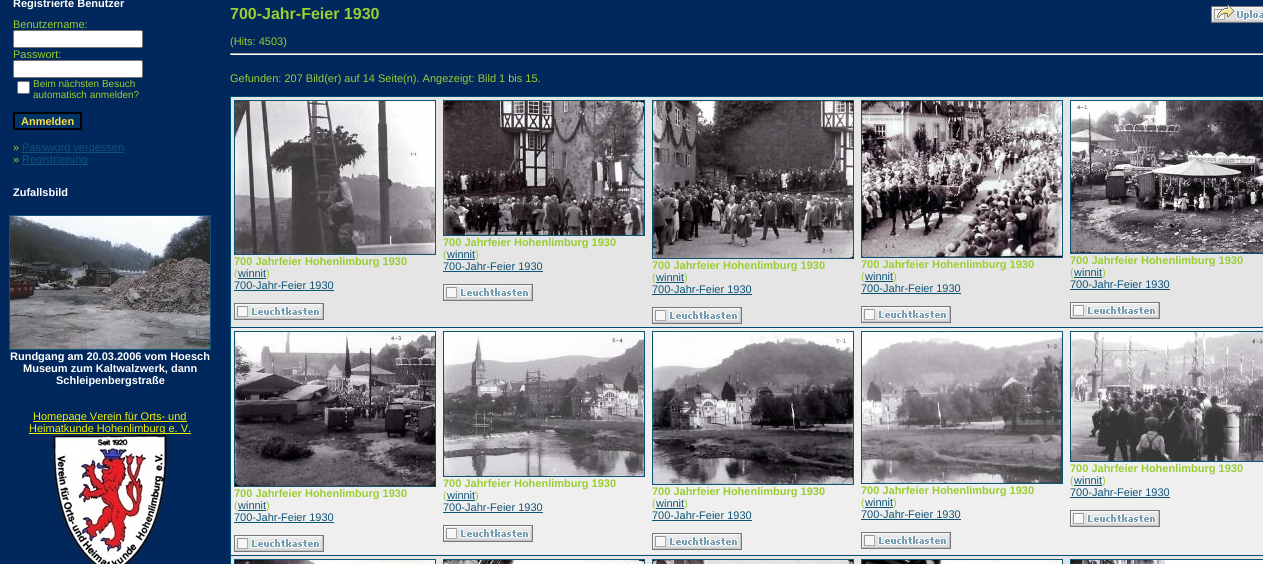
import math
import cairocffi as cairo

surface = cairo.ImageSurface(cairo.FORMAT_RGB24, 1263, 564)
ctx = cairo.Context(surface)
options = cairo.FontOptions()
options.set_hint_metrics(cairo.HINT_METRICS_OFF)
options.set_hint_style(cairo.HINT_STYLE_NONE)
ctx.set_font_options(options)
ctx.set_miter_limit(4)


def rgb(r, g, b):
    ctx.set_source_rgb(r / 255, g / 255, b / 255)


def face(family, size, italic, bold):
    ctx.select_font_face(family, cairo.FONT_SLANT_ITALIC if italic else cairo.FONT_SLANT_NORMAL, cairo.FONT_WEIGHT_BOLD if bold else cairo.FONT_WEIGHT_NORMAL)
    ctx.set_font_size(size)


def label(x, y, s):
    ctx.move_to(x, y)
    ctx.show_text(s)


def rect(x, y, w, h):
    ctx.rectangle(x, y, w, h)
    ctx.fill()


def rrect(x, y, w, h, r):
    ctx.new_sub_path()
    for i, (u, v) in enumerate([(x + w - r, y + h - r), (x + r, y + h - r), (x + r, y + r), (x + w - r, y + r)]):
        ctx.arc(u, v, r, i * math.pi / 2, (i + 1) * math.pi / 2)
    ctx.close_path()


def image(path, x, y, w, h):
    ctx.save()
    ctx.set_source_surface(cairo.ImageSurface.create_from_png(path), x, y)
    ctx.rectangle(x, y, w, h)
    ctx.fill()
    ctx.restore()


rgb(0, 40, 92)
ctx.paint()
face('Liberation Sans', 11, 0, 1)
rgb(255, 255, 255)
label(13, 7, 'Registrierte Benutzer')
face('Liberation Sans', 11, 0, 0)
rgb(154, 205, 50)
label(13, 28, 'Benutzername:')
rgb(255, 255, 255)
rrect(13.5, 30.5, 129, 17, 1.5)
ctx.fill_preserve()
rgb(118, 118, 118)
ctx.set_line_width(1)
ctx.stroke()
rgb(154, 205, 50)
label(13, 58, 'Passwort:')
rgb(255, 255, 255)
rrect(13.5, 60.5, 129, 17, 1.5)
ctx.fill_preserve()
rgb(118, 118, 118)
ctx.stroke()
rgb(255, 255, 255)
rrect(17.5, 81.5, 12, 12, 1.5)
ctx.fill_preserve()
rgb(118, 118, 118)
ctx.stroke()
face('Liberation Sans', 10, 0, 0)
rgb(154, 205, 50)
label(33, 87, 'Beim nächsten Besuch')
label(33, 98, 'automatisch anmelden?')
rgb(0, 51, 102)
ctx.rectangle(14, 113, 67, 16)
ctx.fill_preserve()
rgb(0, 0, 0)
ctx.set_line_width(2)
ctx.stroke()
face('Liberation Sans', 11, 0, 1)
rgb(252, 220, 67)
label(21, 125, 'Anmelden')
face('Liberation Sans', 11, 0, 0)
rgb(154, 205, 50)
label(13, 151, '»')
rgb(15, 84, 117)
rect(22, 152, 102, 1)
label(22, 151, 'Password vergessen')
rgb(154, 205, 50)
label(13, 163, '»')
rgb(15, 84, 117)
rect(22, 164, 66, 1)
label(22, 163, 'Registrierung')
face('Liberation Sans', 11, 0, 1)
rgb(255, 255, 255)
label(13, 196, 'Zufallsbild')
ctx.rectangle(9.5, 215.5, 201, 134)
rgb(15, 84, 117)
ctx.set_line_width(1)
ctx.stroke()
image('image0.png', 10, 216, 200, 133)
rgb(255, 255, 255)
label(10, 360, 'Rundgang am 20.03.2006 vom Hoesch')
label(23, 372, 'Museum zum Kaltwalzwerk, dann')
label(56, 384, 'Schleipenbergstraße')
rgb(238, 238, 0)
rect(33, 421, 154, 1)
face('Liberation Sans', 11, 0, 0)
label(33, 420, 'Homepage Verein für Orts- und')
rect(29, 433, 162, 1)
label(29, 432, 'Heimatkunde Hohenlimburg e. V.')
image('image1.png', 50, 434, 120, 130)
face('Liberation Sans', 16, 0, 1)
rgb(154, 205, 50)
label(230, 19, '700-Jahr-Feier 1930')
image('image2.png', 1211, 5, 52, 18)
face('Liberation Sans', 11, 0, 0)
label(230, 45, '(Hits: 4503)')
rgb(255, 255, 255)
rect(230, 54, 1033, 1)
rgb(159, 159, 159)
rect(230, 53, 1033, 1)
rect(230, 53, 1, 2)
rgb(154, 205, 50)
label(230, 82, 'Gefunden: 207 Bild(er) auf 14 Seite(n). Angezeigt: Bild 1 bis 15.')
rgb(0, 76, 117)
rect(230, 96, 1033, 468)
rgb(229, 229, 229)
rect(231, 97, 1032, 230)
ctx.rectangle(234.5, 100.5, 201, 154)
rgb(15, 84, 117)
ctx.stroke()
image('image3.png', 235, 101, 200, 153)
face('Liberation Sans', 11, 0, 1)
rgb(154, 205, 50)
label(234, 265, '700 Jahrfeier Hohenlimburg 1930')
face('Liberation Sans', 11, 0, 0)
label(234, 277, '(')
rgb(15, 84, 117)
label(238, 277, 'winnit')
rect(238, 278, 28, 1)
rgb(154, 205, 50)
label(266, 277, ')')
rgb(15, 84, 117)
label(234, 289, '700-Jahr-Feier 1930')
rect(234, 290, 100, 1)
image('image4.png', 234, 303, 90, 17)
ctx.rectangle(443.5, 100.5, 201, 135)
ctx.stroke()
image('image5.png', 444, 101, 200, 134)
face('Liberation Sans', 11, 0, 1)
rgb(154, 205, 50)
label(443, 246, '700 Jahrfeier Hohenlimburg 1930')
face('Liberation Sans', 11, 0, 0)
label(443, 258, '(')
rgb(15, 84, 117)
label(447, 258, 'winnit')
rect(447, 259, 28, 1)
rgb(154, 205, 50)
label(475, 258, ')')
rgb(15, 84, 117)
label(443, 270, '700-Jahr-Feier 1930')
rect(443, 271, 100, 1)
image('image4.png', 443, 284, 90, 17)
ctx.rectangle(652.5, 100.5, 201, 158)
ctx.stroke()
image('image6.png', 653, 101, 200, 157)
face('Liberation Sans', 11, 0, 1)
rgb(154, 205, 50)
label(652, 269, '700 Jahrfeier Hohenlimburg 1930')
face('Liberation Sans', 11, 0, 0)
label(652, 281, '(')
rgb(15, 84, 117)
label(656, 281, 'winnit')
rect(656, 282, 28, 1)
rgb(154, 205, 50)
label(684, 281, ')')
rgb(15, 84, 117)
label(652, 293, '700-Jahr-Feier 1930')
rect(652, 294, 100, 1)
image('image4.png', 652, 307, 90, 17)
ctx.rectangle(861.5, 100.5, 201, 157)
ctx.stroke()
image('image7.png', 862, 101, 200, 156)
face('Liberation Sans', 11, 0, 1)
rgb(154, 205, 50)
label(861, 268, '700 Jahrfeier Hohenlimburg 1930')
face('Liberation Sans', 11, 0, 0)
label(861, 280, '(')
rgb(15, 84, 117)
label(865, 280, 'winnit')
rect(865, 281, 28, 1)
rgb(154, 205, 50)
label(893, 280, ')')
rgb(15, 84, 117)
label(861, 292, '700-Jahr-Feier 1930')
rect(861, 293, 100, 1)
image('image4.png', 861, 306, 90, 17)
ctx.rectangle(1070.5, 100.5, 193, 153)
ctx.stroke()
image('image8.png', 1071, 101, 192, 152)
face('Liberation Sans', 11, 0, 1)
rgb(154, 205, 50)
label(1070, 264, '700 Jahrfeier Hohenlimburg 1930')
face('Liberation Sans', 11, 0, 0)
label(1070, 276, '(')
rgb(15, 84, 117)
label(1074, 276, 'winnit')
rect(1074, 277, 28, 1)
rgb(154, 205, 50)
label(1102, 276, ')')
rgb(15, 84, 117)
label(1070, 288, '700-Jahr-Feier 1930')
rect(1070, 289, 100, 1)
image('image4.png', 1070, 302, 90, 17)
rgb(239, 239, 239)
rect(231, 328, 1032, 227)
ctx.rectangle(234.5, 331.5, 201, 155)
rgb(15, 84, 117)
ctx.stroke()
image('image9.png', 235, 332, 200, 154)
face('Liberation Sans', 11, 0, 1)
rgb(154, 205, 50)
label(234, 497, '700 Jahrfeier Hohenlimburg 1930')
face('Liberation Sans', 11, 0, 0)
label(234, 509, '(')
rgb(15, 84, 117)
label(238, 509, 'winnit')
rect(238, 510, 28, 1)
rgb(154, 205, 50)
label(266, 509, ')')
rgb(15, 84, 117)
label(234, 521, '700-Jahr-Feier 1930')
rect(234, 522, 100, 1)
image('image4.png', 234, 535, 90, 17)
ctx.rectangle(443.5, 331.5, 201, 145)
ctx.stroke()
image('image10.png', 444, 332, 200, 144)
face('Liberation Sans', 11, 0, 1)
rgb(154, 205, 50)
label(443, 487, '700 Jahrfeier Hohenlimburg 1930')
face('Liberation Sans', 11, 0, 0)
label(443, 499, '(')
rgb(15, 84, 117)
label(447, 499, 'winnit')
rect(447, 500, 28, 1)
rgb(154, 205, 50)
label(475, 499, ')')
rgb(15, 84, 117)
label(443, 511, '700-Jahr-Feier 1930')
rect(443, 512, 100, 1)
image('image4.png', 443, 525, 90, 17)
ctx.rectangle(652.5, 331.5, 201, 153)
ctx.stroke()
image('image11.png', 653, 332, 200, 152)
face('Liberation Sans', 11, 0, 1)
rgb(154, 205, 50)
label(652, 495, '700 Jahrfeier Hohenlimburg 1930')
face('Liberation Sans', 11, 0, 0)
label(652, 507, '(')
rgb(15, 84, 117)
label(656, 507, 'winnit')
rect(656, 508, 28, 1)
rgb(154, 205, 50)
label(684, 507, ')')
rgb(15, 84, 117)
label(652, 519, '700-Jahr-Feier 1930')
rect(652, 520, 100, 1)
image('image4.png', 652, 533, 90, 17)
ctx.rectangle(861.5, 331.5, 201, 152)
ctx.stroke()
image('image12.png', 862, 332, 200, 151)
face('Liberation Sans', 11, 0, 1)
rgb(154, 205, 50)
label(861, 494, '700 Jahrfeier Hohenlimburg 1930')
face('Liberation Sans', 11, 0, 0)
label(861, 506, '(')
rgb(15, 84, 117)
label(865, 506, 'winnit')
rect(865, 507, 28, 1)
rgb(154, 205, 50)
label(893, 506, ')')
rgb(15, 84, 117)
label(861, 518, '700-Jahr-Feier 1930')
rect(861, 519, 100, 1)
image('image4.png', 861, 532, 90, 17)
ctx.rectangle(1070.5, 331.5, 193, 130)
ctx.stroke()
image('image13.png', 1071, 332, 192, 129)
face('Liberation Sans', 11, 0, 1)
rgb(154, 205, 50)
label(1070, 472, '700 Jahrfeier Hohenlimburg 1930')
face('Liberation Sans', 11, 0, 0)
label(1070, 484, '(')
rgb(15, 84, 117)
label(1074, 484, 'winnit')
rect(1074, 485, 28, 1)
rgb(154, 205, 50)
label(1102, 484, ')')
rgb(15, 84, 117)
label(1070, 496, '700-Jahr-Feier 1930')
rect(1070, 497, 100, 1)
image('image4.png', 1070, 510, 90, 17)
rgb(229, 229, 229)
rect(231, 556, 1032, 8)
ctx.rectangle(234.5, 559.5, 201, 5)
rgb(15, 84, 117)
ctx.stroke()
image('image14.png', 235, 560, 200, 4)
ctx.rectangle(443.5, 559.5, 201, 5)
ctx.stroke()
image('image15.png', 444, 560, 200, 4)
ctx.rectangle(652.5, 559.5, 201, 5)
ctx.stroke()
image('image16.png', 653, 560, 200, 4)
ctx.rectangle(861.5, 559.5, 201, 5)
ctx.stroke()
image('image17.png', 862, 560, 200, 4)
ctx.rectangle(1070.5, 559.5, 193, 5)
ctx.stroke()
image('image18.png', 1071, 560, 192, 4)
surface.write_to_png('render.png')
